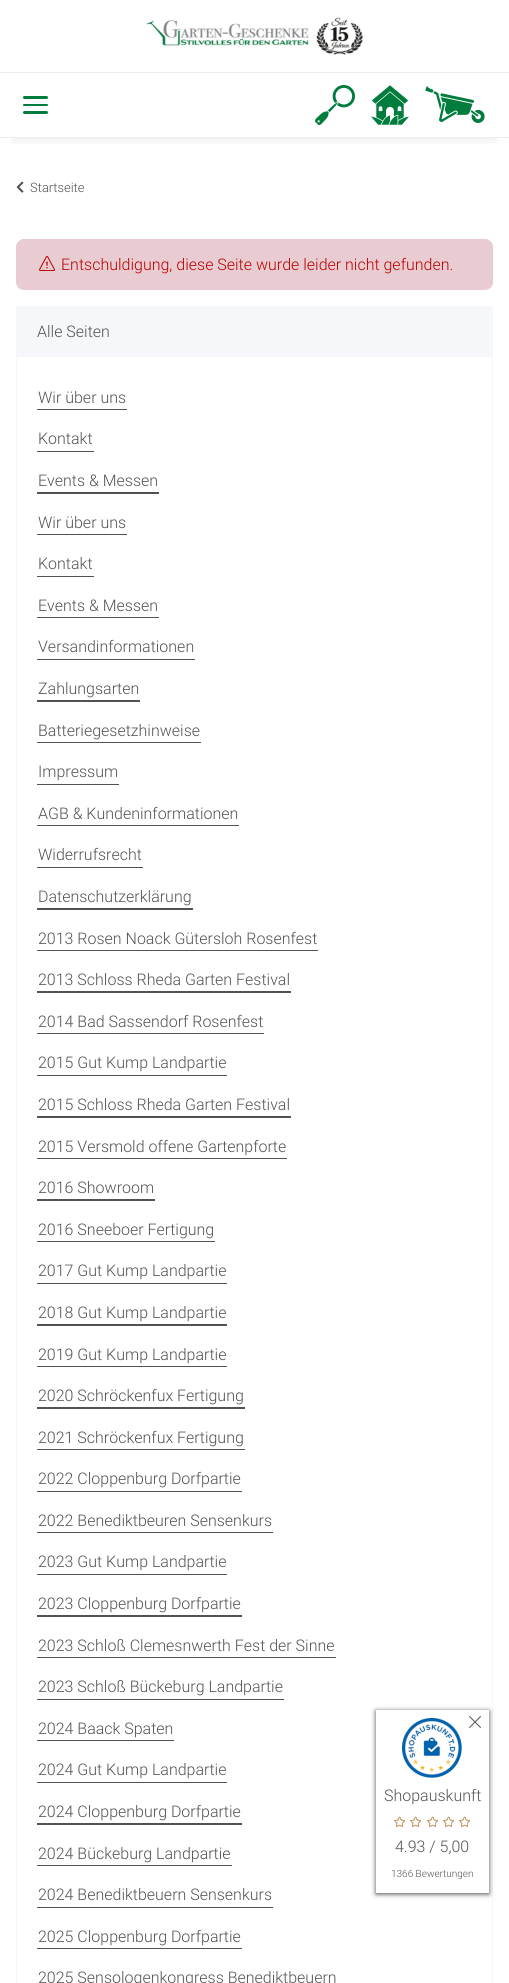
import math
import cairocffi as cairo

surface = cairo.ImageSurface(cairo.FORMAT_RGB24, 509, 1983)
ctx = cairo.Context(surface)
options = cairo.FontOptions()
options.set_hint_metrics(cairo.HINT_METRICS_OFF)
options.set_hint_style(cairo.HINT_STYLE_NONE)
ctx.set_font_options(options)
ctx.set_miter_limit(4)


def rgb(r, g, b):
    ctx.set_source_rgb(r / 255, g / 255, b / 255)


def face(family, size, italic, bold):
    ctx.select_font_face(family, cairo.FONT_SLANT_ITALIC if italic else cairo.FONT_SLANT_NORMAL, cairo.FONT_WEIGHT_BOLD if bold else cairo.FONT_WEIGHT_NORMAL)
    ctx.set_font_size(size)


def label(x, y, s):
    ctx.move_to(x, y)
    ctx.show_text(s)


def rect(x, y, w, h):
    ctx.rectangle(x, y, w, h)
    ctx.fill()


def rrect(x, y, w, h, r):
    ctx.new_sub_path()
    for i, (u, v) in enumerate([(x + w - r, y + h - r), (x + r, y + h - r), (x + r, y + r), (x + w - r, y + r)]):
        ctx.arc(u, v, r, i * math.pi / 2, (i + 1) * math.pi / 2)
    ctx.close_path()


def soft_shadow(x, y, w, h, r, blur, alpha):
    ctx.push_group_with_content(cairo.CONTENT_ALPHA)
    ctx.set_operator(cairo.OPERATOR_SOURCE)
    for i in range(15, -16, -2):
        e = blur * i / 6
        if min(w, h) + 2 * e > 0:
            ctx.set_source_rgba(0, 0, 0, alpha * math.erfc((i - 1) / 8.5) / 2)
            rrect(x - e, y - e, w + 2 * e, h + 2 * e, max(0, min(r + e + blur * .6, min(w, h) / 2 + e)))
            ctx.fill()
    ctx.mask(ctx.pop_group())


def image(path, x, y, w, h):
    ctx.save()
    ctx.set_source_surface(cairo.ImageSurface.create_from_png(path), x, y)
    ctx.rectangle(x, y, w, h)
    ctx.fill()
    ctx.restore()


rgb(255, 255, 255)
ctx.paint()
ctx.save()
ctx.rectangle(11, 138, 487, 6)
ctx.clip()
rgb(0, 0, 0)
soft_shadow(12, 28, 485, 114, 0, 4.5, 0.06)
ctx.restore()
rgb(237, 237, 237)
rect(0, 72, 509, 1)
image('image0.png', 146, 17, 217, 38)
rect(0, 137, 509, 1)
rgb(0, 124, 61)
rrect(23, 104, 25, 2, 1)
ctx.fill()
rrect(23, 96, 25, 3, 1.5)
ctx.fill()
rrect(23, 111, 25, 3, 1.5)
ctx.fill()
image('image1.png', 315, 85, 40, 40)
image('image2.png', 371, 85, 38, 40)
image('image3.png', 425, 86, 60, 37)
image('image4.png', 16, 181, 8, 12)
face('Roboto Light', 13, 0, 0)
rgb(82, 82, 82)
label(30, 192, 'Startseite')
rgb(232, 204, 210)
rrect(16.5, 239.5, 476, 50, 7.5)
ctx.fill_preserve()
ctx.set_line_width(1)
ctx.stroke()
image('image5.png', 39, 256, 16, 15)
face('Roboto Light', 16, 0, 0)
rgb(185, 0, 0)
label(61, 270, 'Entschuldigung, diese Seite wurde leider nicht gefunden.')
rrect(16.5, 306.5, 476, 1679, 1.5)
rgb(245, 247, 250)
ctx.stroke()
ctx.new_path()
ctx.move_to(18, 307)
ctx.line_to(491, 307)
ctx.curve_to(491.5, 307, 492, 307.5, 492, 308)
ctx.line_to(492, 357)
ctx.line_to(17, 357)
ctx.line_to(17, 308)
ctx.curve_to(17, 307.5, 17.5, 307, 18, 307)
ctx.close_path()
ctx.fill()
rgb(82, 82, 82)
label(37, 337, 'Alle Seiten')
label(38, 403, 'Wir über uns')
rect(37, 409, 90, 1)
label(38, 444, 'Kontakt')
rect(37, 451, 57, 1)
label(38, 486, 'Events & Messen')
rect(37, 492, 122, 2)
label(38, 528, 'Wir über uns')
rect(37, 534, 90, 1)
label(38, 569, 'Kontakt')
rect(37, 576, 57, 1)
label(38, 611, 'Events & Messen')
rect(37, 617, 122, 1)
label(38, 652, 'Versandinformationen')
rect(37, 659, 158, 1)
label(38, 694, 'Zahlungsarten')
rect(37, 700, 103, 2)
label(38, 736, 'Batteriegesetzhinweise')
rect(37, 742, 164, 1)
label(38, 777, 'Impressum')
rect(37, 784, 82, 1)
label(38, 819, 'AGB & Kundeninformationen')
rect(37, 825, 202, 1)
label(38, 860, 'Widerrufsrecht')
rect(37, 867, 106, 1)
label(38, 902, 'Datenschutzerklärung')
rect(37, 908, 156, 2)
label(38, 944, '2013 Rosen Noack Gütersloh Rosenfest')
rect(37, 950, 281, 1)
label(38, 985, '2013 Schloss Rheda Garten Festival')
rect(37, 991, 254, 2)
label(38, 1027, '2014 Bad Sassendorf Rosenfest')
rect(37, 1033, 227, 1)
label(38, 1068, '2015 Gut Kump Landpartie')
rect(37, 1075, 190, 1)
label(38, 1110, '2015 Schloss Rheda Garten Festival')
rect(37, 1116, 254, 2)
label(38, 1152, '2015 Versmold offene Gartenpforte')
rect(37, 1158, 250, 1)
label(38, 1193, '2016 Showroom')
rect(37, 1199, 118, 2)
label(38, 1235, '2016 Sneeboer Fertigung')
rect(37, 1241, 178, 1)
label(38, 1276, '2017 Gut Kump Landpartie')
rect(37, 1283, 190, 1)
label(38, 1318, '2018 Gut Kump Landpartie')
rect(37, 1324, 190, 2)
label(38, 1360, '2019 Gut Kump Landpartie')
rect(37, 1366, 190, 1)
label(38, 1401, '2020 Schröckenfux Fertigung')
rect(37, 1407, 208, 2)
label(38, 1443, '2021 Schröckenfux Fertigung')
rect(37, 1449, 208, 1)
label(38, 1484, '2022 Cloppenburg Dorfpartie')
rect(37, 1491, 205, 1)
label(38, 1526, '2022 Benediktbeuren Sensenkurs')
rect(37, 1532, 236, 1)
label(38, 1567, '2023 Gut Kump Landpartie')
rect(37, 1574, 190, 1)
label(38, 1609, '2023 Cloppenburg Dorfpartie')
rect(37, 1615, 205, 2)
label(38, 1651, '2023 Schloß Clemesnwerth Fest der Sinne')
rect(37, 1657, 299, 1)
label(38, 1692, '2023 Schloß Bückeburg Landpartie')
rect(37, 1699, 247, 1)
label(38, 1734, '2024 Baack Spaten')
rect(37, 1740, 137, 1)
label(38, 1775, '2024 Gut Kump Landpartie')
rect(37, 1782, 190, 1)
label(38, 1817, '2024 Cloppenburg Dorfpartie')
rect(37, 1823, 205, 2)
label(38, 1859, '2024 Bückeburg Landpartie')
rect(37, 1865, 195, 1)
label(38, 1900, '2024 Benediktbeuern Sensenkurs')
rect(37, 1907, 236, 1)
label(38, 1942, '2025 Cloppenburg Dorfpartie')
rect(37, 1948, 205, 1)
label(38, 1983, '2025 Sensologenkongress Benediktbeuern')
ctx.save()
ctx.set_fill_rule(cairo.FILL_RULE_EVEN_ODD)
ctx.new_path()
ctx.move_to(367, 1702)
ctx.line_to(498, 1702)
ctx.line_to(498, 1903)
ctx.line_to(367, 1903)
ctx.close_path()
ctx.move_to(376, 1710)
ctx.line_to(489, 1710)
ctx.line_to(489, 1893)
ctx.line_to(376, 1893)
ctx.close_path()
ctx.clip()
rgb(74, 74, 74)
soft_shadow(376, 1711, 113, 183, 0, 2.5, 1)
ctx.restore()
image('image6.png', 402, 1718, 60, 60)
image('image7.png', 469, 1716, 12, 12)
label(384, 1801, 'Shopauskunft')
image('image8.png', 394, 1816, 11, 11)
image('image9.png', 394, 1817, 11, 10)
image('image8.png', 410, 1816, 11, 11)
image('image9.png', 410, 1817, 11, 10)
image('image8.png', 427, 1816, 11, 11)
image('image9.png', 427, 1817, 11, 10)
image('image8.png', 443, 1816, 11, 11)
image('image9.png', 443, 1817, 11, 10)
image('image8.png', 459, 1816, 11, 11)
image('image9.png', 459, 1817, 11, 10)
label(395, 1852, '4.93 / 5,00')
face('Roboto Light', 10, 0, 0)
label(391, 1877, '1366 Bewertungen')
surface.write_to_png('render.png')
